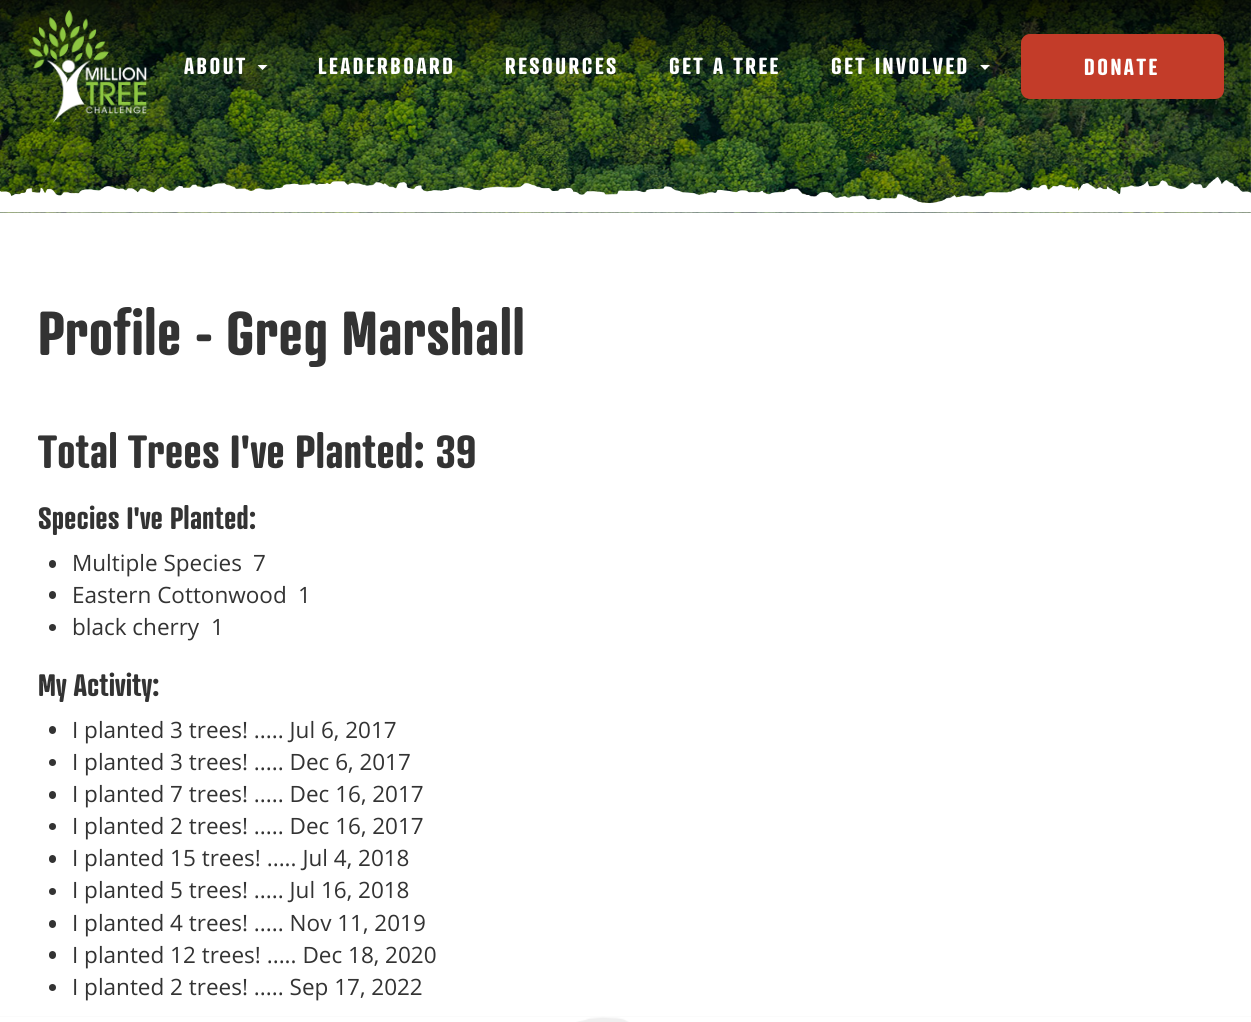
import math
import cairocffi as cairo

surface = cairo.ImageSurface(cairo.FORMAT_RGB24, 1251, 1022)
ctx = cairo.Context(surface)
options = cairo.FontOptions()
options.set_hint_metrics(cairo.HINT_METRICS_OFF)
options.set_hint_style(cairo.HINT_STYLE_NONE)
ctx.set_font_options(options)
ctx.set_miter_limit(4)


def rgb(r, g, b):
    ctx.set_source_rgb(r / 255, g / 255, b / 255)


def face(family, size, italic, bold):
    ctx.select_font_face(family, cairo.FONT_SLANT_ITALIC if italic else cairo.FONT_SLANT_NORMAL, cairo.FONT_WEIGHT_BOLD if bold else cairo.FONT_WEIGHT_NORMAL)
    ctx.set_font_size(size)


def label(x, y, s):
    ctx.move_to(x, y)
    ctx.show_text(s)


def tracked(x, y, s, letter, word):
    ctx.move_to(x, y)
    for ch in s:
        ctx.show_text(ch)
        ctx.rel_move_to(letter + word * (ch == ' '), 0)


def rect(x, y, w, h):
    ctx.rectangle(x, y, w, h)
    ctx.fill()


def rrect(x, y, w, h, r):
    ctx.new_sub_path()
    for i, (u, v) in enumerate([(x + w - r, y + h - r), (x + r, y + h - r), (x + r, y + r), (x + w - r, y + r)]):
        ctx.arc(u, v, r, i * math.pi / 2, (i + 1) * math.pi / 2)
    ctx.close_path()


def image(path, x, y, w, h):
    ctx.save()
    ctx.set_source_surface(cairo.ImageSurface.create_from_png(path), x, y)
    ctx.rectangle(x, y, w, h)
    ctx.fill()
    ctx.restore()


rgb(255, 255, 255)
ctx.paint()
image('image0.png', 0, 0, 1251, 213)
gradient = cairo.LinearGradient(626, 0, 626, 75)
gradient.add_color_stop_rgba(0, 0, 0, 0, 0.75)
gradient.add_color_stop_rgba(1, 0, 0, 0, 0)
ctx.set_source(gradient)
rect(0, 0, 1251, 73)
image('image1.png', 28, 10, 119, 113)
face('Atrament', 22.5, 0, 1)
rgb(255, 255, 255)
tracked(184, 74, 'ABOUT', 2.5, 0)
ctx.new_path()
ctx.move_to(257.5, 65)
ctx.line_to(267.5, 65)
ctx.line_to(262.5, 70)
ctx.close_path()
ctx.fill()
tracked(318, 74, 'LEADERBOARD', 2.5, 0)
tracked(505, 74, 'RESOURCES', 2.5, 0)
tracked(669, 74, 'GET A TREE', 2.5, 0)
tracked(831, 74, 'GET INVOLVED', 2.5, 0)
ctx.new_path()
ctx.move_to(980, 65)
ctx.line_to(990, 65)
ctx.line_to(985, 70)
ctx.close_path()
ctx.fill()
rgb(195, 60, 41)
rrect(1021, 34, 203, 65, 9)
ctx.fill()
rgb(255, 255, 255)
tracked(1084, 75, 'DONATE', 2.5, 0)
image('image2.png', 0, 177, 1251, 36)
face('Atrament', 60, 0, 1)
rgb(51, 51, 51)
label(38, 355, 'Profile - Greg Marshall')
face('Atrament', 45, 0, 1)
label(38, 468, 'Total Trees I\'ve Planted: 39')
face('Atrament', 30, 0, 1)
label(38, 529, 'Species I\'ve Planted:')
rrect(49, 560, 7, 8, 3.5)
ctx.fill()
face('Open Sans', 22.5, 0, 0)
label(72, 571, 'Multiple Species')
label(253, 571, '7')
rrect(49, 591, 7, 8, 3.5)
ctx.fill()
label(72, 603, 'Eastern Cottonwood')
label(298, 603, '1')
ctx.new_path()
ctx.arc(52.5, 627.5, 3.5, 0, 2 * math.pi)
ctx.fill()
label(72, 635, 'black cherry')
label(211, 635, '1')
face('Atrament', 30, 0, 1)
label(38, 696, 'My Activity:')
rrect(49, 726, 7, 8, 3.5)
ctx.fill()
face('Open Sans', 22.5, 0, 0)
label(72, 738, 'I planted 3 trees! ..... Jul 6, 2017')
ctx.new_path()
ctx.arc(52.5, 762.5, 3.5, 0, 2 * math.pi)
ctx.fill()
label(72, 770, 'I planted 3 trees! ..... Dec 6, 2017')
rrect(49, 791, 7, 8, 3.5)
ctx.fill()
label(72, 802, 'I planted 7 trees! ..... Dec 16, 2017')
ctx.new_path()
ctx.arc(52.5, 826.5, 3.5, 0, 2 * math.pi)
ctx.fill()
label(72, 834, 'I planted 2 trees! ..... Dec 16, 2017')
rrect(49, 855, 7, 8, 3.5)
ctx.fill()
label(72, 866, 'I planted 15 trees! ..... Jul 4, 2018')
ctx.new_path()
ctx.arc(52.5, 891.5, 3.5, 0, 2 * math.pi)
ctx.fill()
label(72, 898, 'I planted 5 trees! ..... Jul 16, 2018')
rrect(49, 920, 7, 8, 3.5)
ctx.fill()
label(72, 931, 'I planted 4 trees! ..... Nov 11, 2019')
rrect(49, 951, 7, 8, 3.5)
ctx.fill()
label(72, 963, 'I planted 12 trees! ..... Dec 18, 2020')
ctx.new_path()
ctx.arc(52.5, 987.5, 3.5, 0, 2 * math.pi)
ctx.fill()
label(72, 995, 'I planted 2 trees! ..... Sep 17, 2022')
rgb(239, 239, 239)
rect(0, 1016, 1251, 6)
image('image3.png', 0, 1016, 1251, 6)
surface.write_to_png('render.png')
